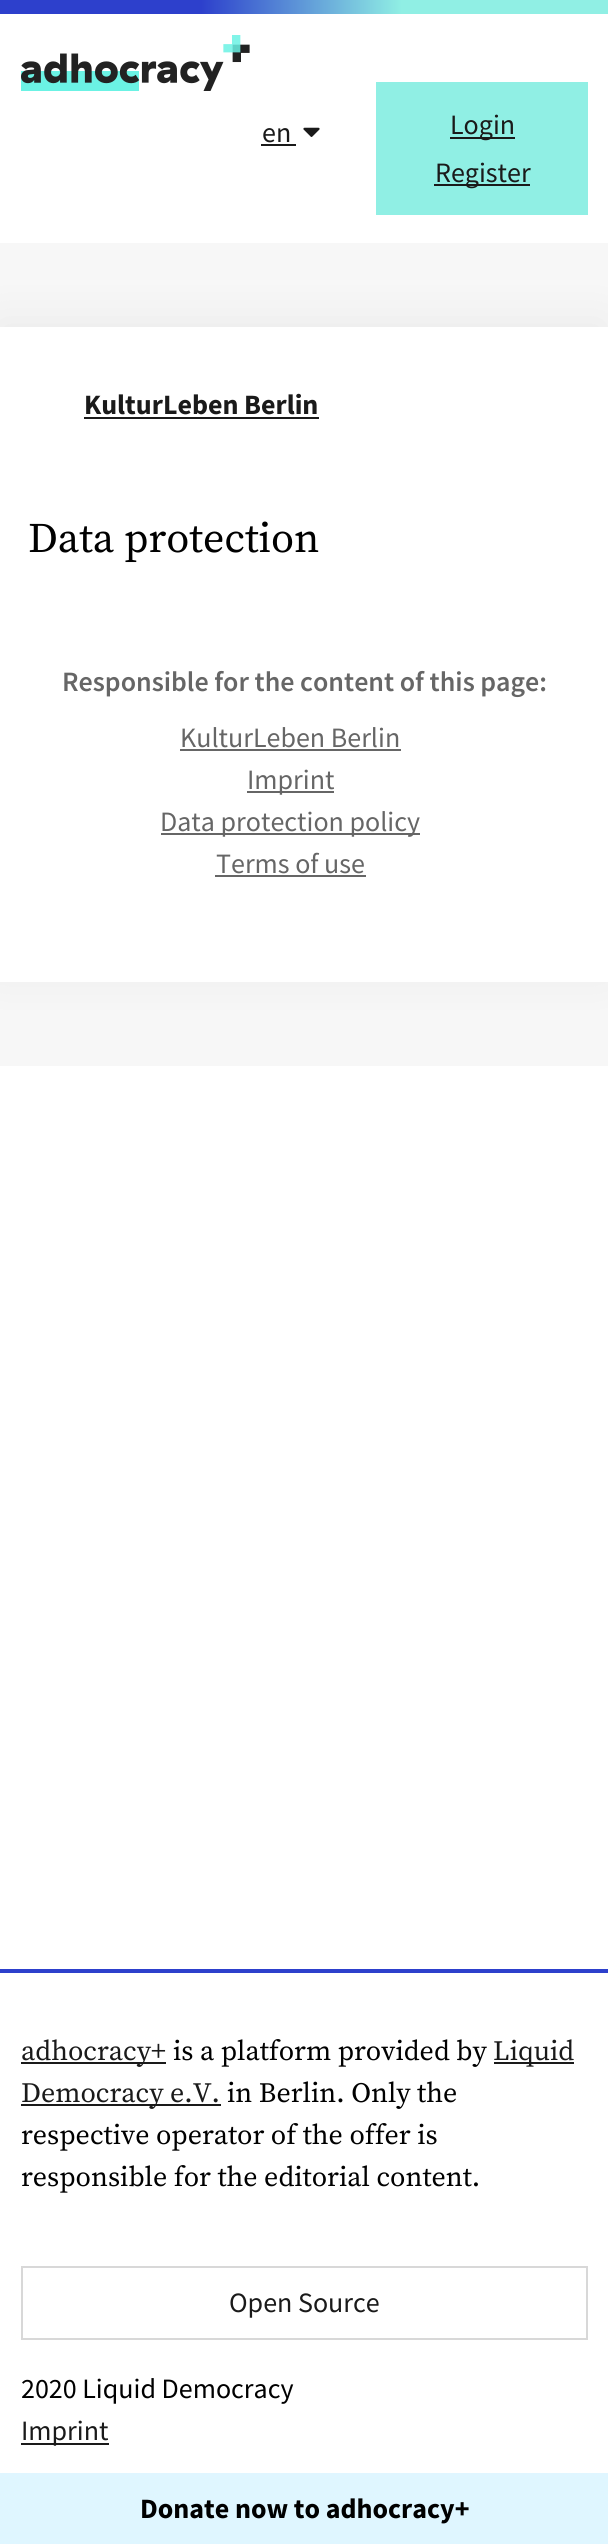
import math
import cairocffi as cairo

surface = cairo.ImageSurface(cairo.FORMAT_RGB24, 608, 2544)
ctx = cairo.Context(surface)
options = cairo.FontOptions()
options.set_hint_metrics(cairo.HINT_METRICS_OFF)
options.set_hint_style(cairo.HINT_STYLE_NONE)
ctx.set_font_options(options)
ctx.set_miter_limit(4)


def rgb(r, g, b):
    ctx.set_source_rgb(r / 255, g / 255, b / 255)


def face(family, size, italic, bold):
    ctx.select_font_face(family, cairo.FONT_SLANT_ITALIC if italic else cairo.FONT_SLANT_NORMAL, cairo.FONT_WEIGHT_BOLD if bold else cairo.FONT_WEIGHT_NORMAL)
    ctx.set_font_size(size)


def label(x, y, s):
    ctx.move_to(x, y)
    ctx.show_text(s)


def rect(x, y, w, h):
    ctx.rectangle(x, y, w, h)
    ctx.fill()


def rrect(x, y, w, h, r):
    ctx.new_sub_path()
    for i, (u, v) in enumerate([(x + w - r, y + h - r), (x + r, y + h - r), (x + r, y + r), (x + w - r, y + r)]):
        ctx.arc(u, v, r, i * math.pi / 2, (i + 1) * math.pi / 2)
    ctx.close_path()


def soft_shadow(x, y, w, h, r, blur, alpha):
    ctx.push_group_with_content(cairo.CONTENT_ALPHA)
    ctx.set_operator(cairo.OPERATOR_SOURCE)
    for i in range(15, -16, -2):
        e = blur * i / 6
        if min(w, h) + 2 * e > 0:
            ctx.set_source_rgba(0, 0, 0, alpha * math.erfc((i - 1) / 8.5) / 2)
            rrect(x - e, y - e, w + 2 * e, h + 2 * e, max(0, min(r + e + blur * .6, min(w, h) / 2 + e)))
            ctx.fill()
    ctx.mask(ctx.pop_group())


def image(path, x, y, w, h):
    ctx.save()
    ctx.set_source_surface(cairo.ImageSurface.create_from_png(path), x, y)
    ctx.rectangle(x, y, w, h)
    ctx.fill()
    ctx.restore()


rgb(255, 255, 255)
ctx.paint()
gradient = cairo.LinearGradient(0, 7, 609, 7)
gradient.add_color_stop_rgba(0, 0.176, 0.251, 0.8, 1)
gradient.add_color_stop_rgba(0.33, 0.176, 0.251, 0.8, 1)
gradient.add_color_stop_rgba(0.66, 0.565, 0.937, 0.894, 1)
gradient.add_color_stop_rgba(1, 0.565, 0.937, 0.894, 1)
ctx.set_source(gradient)
rect(0, 0, 608, 14)
image('image0.png', 21, 35, 229, 56)
face('Source Sans Pro', 28, 0, 0)
rgb(26, 26, 26)
label(262, 142, 'en')
rect(261, 144, 35, 2)
image('image1.png', 303, 127, 17, 10)
rgb(144, 239, 228)
rect(376, 82, 212, 133)
rgb(26, 26, 26)
rect(450, 137, 65, 2)
label(450, 134, 'Login')
rect(434, 184, 96, 2)
label(435, 182, 'Register')
rgb(247, 247, 247)
rect(0, 243, 608, 823)
rgb(0, 0, 0)
soft_shadow(-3, 320, 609, 655, 0, 23.5, 0.05)
rgb(255, 255, 255)
rect(0, 327, 608, 655)
face('Source Sans Pro', 28, 0, 1)
rgb(26, 26, 26)
label(84, 414, 'KulturLeben Berlin')
rect(84, 417, 235, 2)
face('Source Serif Pro', 42, 0, 0)
rgb(0, 0, 0)
label(28, 552, 'Data protection')
face('Source Sans Pro SemiBold', 28, 0, 0)
rgb(102, 102, 102)
label(62, 691, 'Responsible for the content of this page:')
face('Source Sans Pro', 28, 0, 0)
label(180, 747, 'KulturLeben Berlin')
rect(180, 749, 221, 2)
rect(247, 791, 87, 2)
label(247, 789, 'Imprint')
rect(161, 833, 259, 2)
label(160, 831, 'Data protection policy')
label(216, 873, 'Terms of use')
rect(215, 875, 151, 2)
rgb(45, 64, 204)
rect(0, 1969, 608, 4)
rgb(26, 26, 26)
rect(21, 2062, 145, 2)
face('Source Serif Pro', 28, 0, 0)
label(21, 2060, 'adhocracy+')
rgb(0, 0, 0)
label(173, 2060, 'is a platform provided by')
rgb(26, 26, 26)
rect(494, 2062, 80, 2)
label(493, 2060, 'Liquid')
rect(21, 2104, 200, 2)
label(21, 2102, 'Democracy e.V.')
rgb(0, 0, 0)
label(227, 2102, 'in Berlin. Only the')
label(21, 2144, 'respective operator of the offer is')
label(21, 2186, 'responsible for the editorial content.')
ctx.rectangle(22, 2267, 565, 72)
rgb(216, 216, 216)
ctx.stroke()
face('Source Sans Pro', 28, 0, 0)
rgb(26, 26, 26)
label(229, 2312, 'Open Source')
rgb(0, 0, 0)
label(21, 2398, '2020 Liquid Democracy')
rgb(26, 26, 26)
rect(21, 2443, 88, 2)
label(21, 2440, 'Imprint')
rgb(223, 246, 255)
rect(0, 2473, 608, 71)
face('Source Sans Pro', 28, 0, 1)
rgb(0, 0, 0)
label(140, 2518, 'Donate now to adhocracy+')
surface.write_to_png('render.png')
